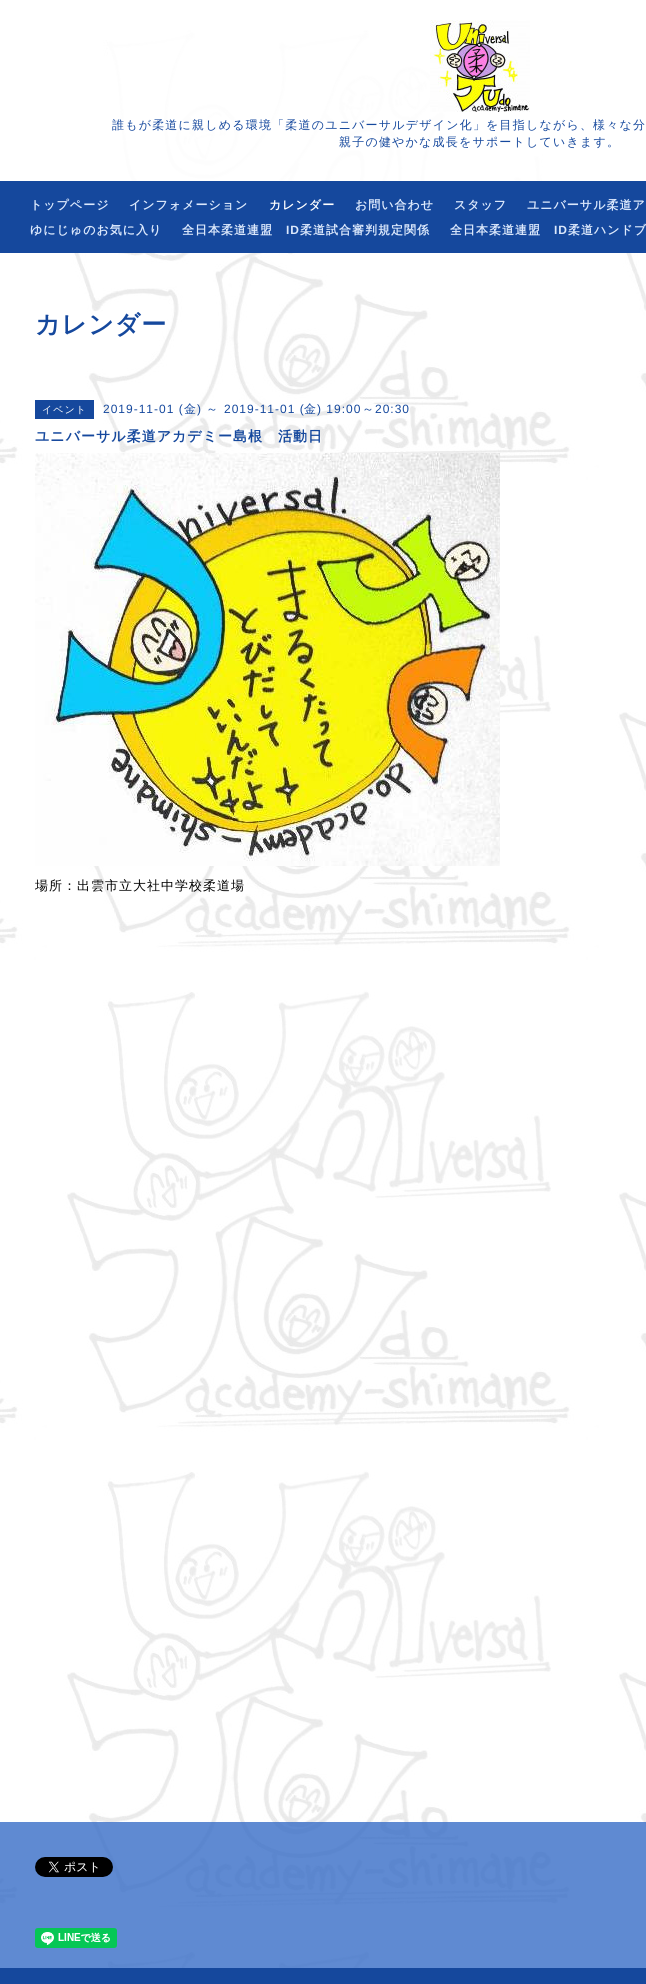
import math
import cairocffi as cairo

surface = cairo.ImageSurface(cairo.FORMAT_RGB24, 646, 1984)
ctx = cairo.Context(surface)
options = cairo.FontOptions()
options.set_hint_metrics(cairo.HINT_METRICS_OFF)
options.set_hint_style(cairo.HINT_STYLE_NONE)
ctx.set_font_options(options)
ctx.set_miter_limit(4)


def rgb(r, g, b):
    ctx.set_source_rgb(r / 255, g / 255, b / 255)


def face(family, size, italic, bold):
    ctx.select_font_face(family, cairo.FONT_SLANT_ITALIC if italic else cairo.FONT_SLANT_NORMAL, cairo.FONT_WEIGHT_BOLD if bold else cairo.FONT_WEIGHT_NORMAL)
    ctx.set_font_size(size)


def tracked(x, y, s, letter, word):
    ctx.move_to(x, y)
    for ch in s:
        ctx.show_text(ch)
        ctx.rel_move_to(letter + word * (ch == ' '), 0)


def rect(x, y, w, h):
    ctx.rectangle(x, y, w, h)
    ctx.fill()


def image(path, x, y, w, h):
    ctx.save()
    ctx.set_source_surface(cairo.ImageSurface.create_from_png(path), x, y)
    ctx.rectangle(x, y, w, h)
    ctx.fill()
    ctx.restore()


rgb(255, 255, 255)
ctx.paint()
image('image0.png', 0, 25, 646, 1943)
ctx.set_source_rgba(1, 1, 1, 0.9)
rect(108, 32, 433, 149)
image('image1.png', 430, 20, 100, 92)
face('WenQuanYi Zen Hei Medium', 12, 0, 0)
rgb(21, 72, 157)
tracked(112, 129, '誰もが柔道に親しめる環境「柔道のユニバーサルデザイン化」を目指しながら、様々な分', 1.2, 0)
tracked(339, 146, '親子の健やかな成長をサポートしていきます。', 1.2, 0)
rect(0, 181, 646, 72)
face('WenQuanYi Zen Hei', 12, 0, 1)
rgb(219, 232, 252)
tracked(30, 209, 'トップページ', 1, 0)
tracked(129, 209, 'インフォメーション', 1, 0)
rgb(255, 255, 255)
tracked(269, 209, 'カレンダー', 1, 0)
rgb(219, 232, 252)
tracked(355, 209, 'お問い合わせ', 1, 0)
tracked(454, 209, 'スタッフ', 1, 0)
tracked(527, 209, 'ユニバーサル柔道ア', 1, 0)
tracked(30, 234, 'ゆにじゅのお気に入り', 1, 0)
tracked(182, 234, '全日本柔道連盟', 1, 0)
face('Liberation Sans', 12, 0, 1)
tracked(286, 234, 'ID', 1, 0)
face('WenQuanYi Zen Hei', 12, 0, 1)
tracked(300, 234, '柔道試合審判規定関係', 1, 0)
tracked(450, 234, '全日本柔道連盟', 1, 0)
face('Liberation Sans', 12, 0, 1)
tracked(554, 234, 'ID', 1, 0)
face('WenQuanYi Zen Hei', 12, 0, 1)
tracked(568, 234, '柔道ハンドブ', 1, 0)
face('WenQuanYi Zen Hei', 25, 0, 1)
rgb(21, 72, 157)
tracked(35, 333, 'カレンダー', 1, 0)
rect(35, 400, 59, 19)
face('WenQuanYi Zen Hei Medium', 10, 0, 0)
rgb(255, 255, 255)
tracked(42, 413, 'イベント', 1, 0)
face('Liberation Sans', 12, 0, 0)
rgb(21, 72, 157)
tracked(103, 413, '2019-11-01 (', 1, 0)
face('WenQuanYi Zen Hei Medium', 12, 0, 0)
tracked(184, 413, '金', 1, 0)
face('Liberation Sans', 12, 0, 0)
tracked(197, 413, ')', 1, 0)
face('WenQuanYi Zen Hei Medium', 12, 0, 0)
tracked(206, 413, '～', 1, 0)
face('Liberation Sans', 12, 0, 0)
tracked(224, 413, '2019-11-01 (', 1, 0)
face('WenQuanYi Zen Hei Medium', 12, 0, 0)
tracked(304, 413, '金', 1, 0)
face('Liberation Sans', 12, 0, 0)
tracked(317, 413, ') 19:00', 1, 0)
face('WenQuanYi Zen Hei Medium', 12, 0, 0)
tracked(362, 413, '～', 1, 0)
face('Liberation Sans', 12, 0, 0)
tracked(375, 413, '20:30', 1, 0)
face('WenQuanYi Zen Hei', 14, 0, 1)
tracked(35, 441, 'ユニバーサル柔道アカデミー島根　活動日', 1, 0)
image('image2.png', 35, 453, 465, 413)
face('WenQuanYi Zen Hei Medium', 13, 0, 0)
rgb(0, 0, 0)
tracked(35, 890, '場所：出雲市立大社中学校柔道場', 1, 0)
ctx.set_source_rgba(0.216, 0.427, 0.78, 0.8)
rect(0, 1822, 646, 146)
image('image3.png', 35, 1857, 78, 20)
image('image4.png', 35, 1928, 82, 20)
rgb(21, 72, 157)
rect(0, 1968, 646, 16)
surface.write_to_png('render.png')
